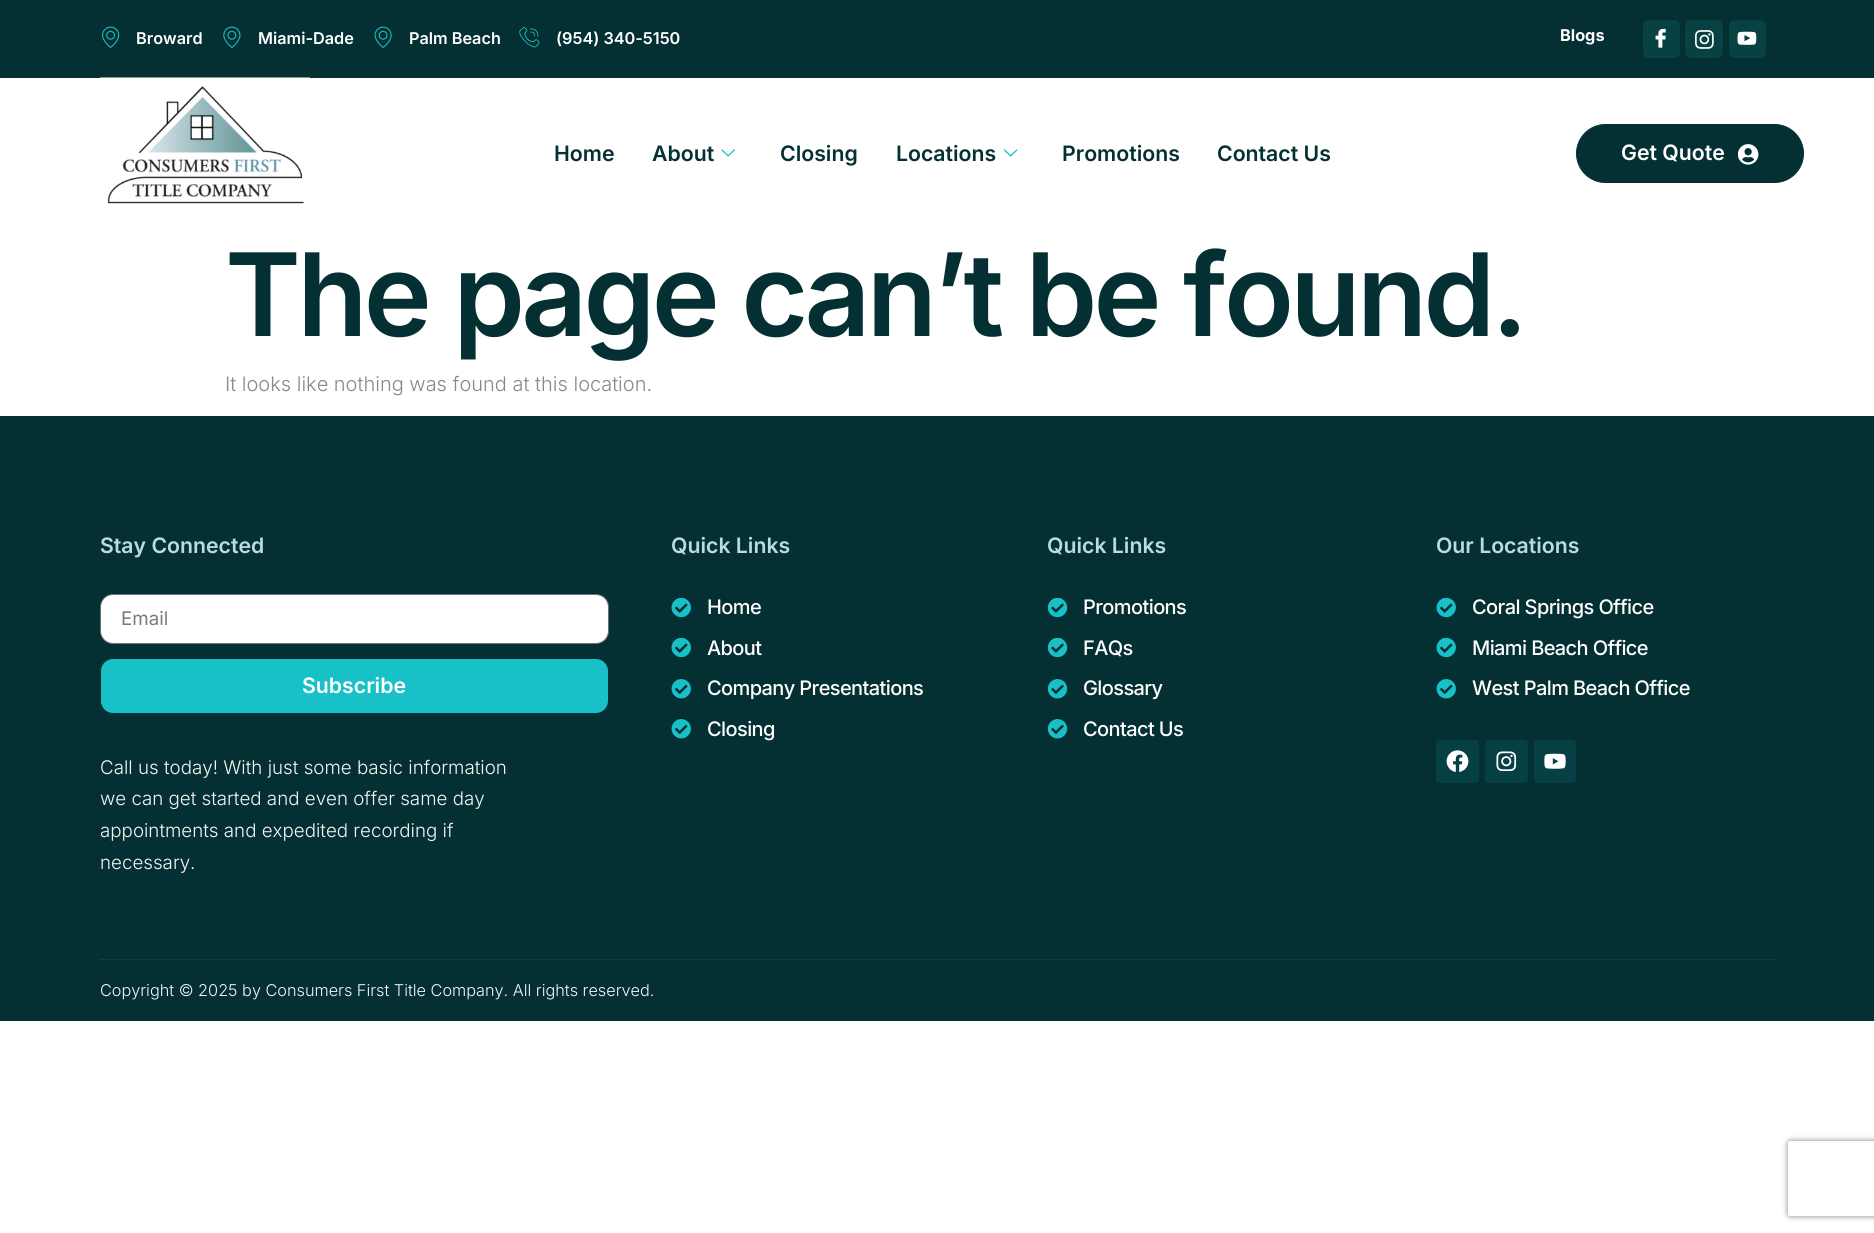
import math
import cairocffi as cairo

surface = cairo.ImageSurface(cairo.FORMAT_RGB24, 1874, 1233)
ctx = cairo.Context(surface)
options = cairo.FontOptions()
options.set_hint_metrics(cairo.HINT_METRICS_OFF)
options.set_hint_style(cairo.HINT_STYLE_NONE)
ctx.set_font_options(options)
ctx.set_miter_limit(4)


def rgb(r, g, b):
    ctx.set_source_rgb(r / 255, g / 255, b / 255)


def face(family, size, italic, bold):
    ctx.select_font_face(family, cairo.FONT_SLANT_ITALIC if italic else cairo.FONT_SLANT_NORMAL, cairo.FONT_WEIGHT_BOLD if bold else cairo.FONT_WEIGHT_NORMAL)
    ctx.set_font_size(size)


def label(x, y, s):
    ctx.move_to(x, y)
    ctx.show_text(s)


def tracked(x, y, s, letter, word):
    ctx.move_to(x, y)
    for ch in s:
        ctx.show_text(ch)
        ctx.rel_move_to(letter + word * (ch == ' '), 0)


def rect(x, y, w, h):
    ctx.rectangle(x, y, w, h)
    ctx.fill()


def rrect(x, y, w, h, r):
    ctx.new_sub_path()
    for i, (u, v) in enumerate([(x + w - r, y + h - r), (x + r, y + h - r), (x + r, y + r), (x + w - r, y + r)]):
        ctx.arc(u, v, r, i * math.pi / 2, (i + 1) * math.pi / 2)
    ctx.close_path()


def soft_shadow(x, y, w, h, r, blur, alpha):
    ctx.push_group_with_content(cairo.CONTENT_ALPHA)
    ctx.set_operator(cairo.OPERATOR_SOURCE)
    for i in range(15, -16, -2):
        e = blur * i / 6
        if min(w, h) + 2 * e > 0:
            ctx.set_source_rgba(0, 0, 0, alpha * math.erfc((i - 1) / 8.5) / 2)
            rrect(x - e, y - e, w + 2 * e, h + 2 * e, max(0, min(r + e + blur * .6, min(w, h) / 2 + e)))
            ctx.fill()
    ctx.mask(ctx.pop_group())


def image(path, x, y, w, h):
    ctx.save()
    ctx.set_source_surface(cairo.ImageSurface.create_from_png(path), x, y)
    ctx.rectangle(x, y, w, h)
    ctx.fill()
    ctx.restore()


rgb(255, 255, 255)
ctx.paint()
rgb(4, 48, 51)
rect(0, 0, 1874, 78)
image('image0.png', 102, 26, 18, 22)
face('Inter SemiBold', 16.25, 0, 0)
rgb(255, 255, 255)
label(136, 44, 'Broward')
image('image1.png', 223, 26, 18, 22)
label(258, 44, 'Miami-Dade')
image('image2.png', 374, 26, 18, 22)
label(409, 44, 'Palm Beach')
image('image3.png', 519, 27, 21, 21)
label(556, 44, '(954) 340-5150')
face('Inter', 16.25, 0, 1)
label(1560, 41, 'Blogs')
rgb(7, 65, 68)
rrect(1643, 20, 37, 38, 6)
ctx.fill()
image('image4.png', 1655, 28, 11, 20)
rrect(1685, 20, 38, 38, 6)
ctx.fill()
image('image5.png', 1695, 30, 19, 19)
rrect(1729, 20, 37, 38, 6)
ctx.fill()
image('image6.png', 1737, 31, 20, 14)
image('image7.png', 100, 77, 210, 127)
face('Inter SemiBold', 21.25, 0, 0)
rgb(4, 48, 51)
label(554, 161, 'Home')
label(652, 161, 'About')
image('image8.png', 721, 149, 14, 8)
label(780, 161, 'Closing')
label(896, 161, 'Locations')
image('image9.png', 1003, 149, 15, 8)
label(1062, 161, 'Promotions')
label(1217, 161, 'Contact Us')
rrect(1576.5, 124.5, 227, 58, 29)
ctx.fill_preserve()
ctx.set_line_width(1)
ctx.stroke()
rgb(255, 255, 255)
label(1621, 160, 'Get Quote')
image('image10.png', 1738, 144, 21, 21)
face('Inter SemiBold', 115, 0, 0)
rgb(4, 48, 51)
tracked(225, 336, 'The page can’t be found.', -3.75, 0)
face('Inter Light', 20, 0, 0)
rgb(136, 136, 136)
label(225, 391, 'It looks like nothing was found at this location.')
rgb(4, 48, 51)
rect(0, 416, 1874, 605)
rgb(7, 65, 68)
rect(100, 959, 1675, 1)
face('Inter SemiBold', 21.25, 0, 0)
rgb(187, 220, 223)
label(100, 553, 'Stay Connected')
rgb(255, 255, 255)
rrect(100.5, 594.5, 508, 49, 12.5)
ctx.fill_preserve()
rgb(105, 114, 125)
ctx.stroke()
face('Inter', 18.75, 0, 0)
rgb(121, 122, 124)
label(121, 625, 'Email')
rgb(24, 192, 200)
rrect(100.5, 658.5, 508, 55, 12.5)
ctx.fill_preserve()
rgb(4, 48, 51)
ctx.stroke()
face('Inter SemiBold', 21.25, 0, 0)
rgb(255, 255, 255)
label(302, 693, 'Subscribe')
ctx.save()
ctx.set_fill_rule(cairo.FILL_RULE_EVEN_ODD)
ctx.new_path()
ctx.move_to(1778, 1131)
ctx.line_to(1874, 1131)
ctx.line_to(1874, 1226)
ctx.line_to(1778, 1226)
ctx.close_path()
ctx.move_to(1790.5, 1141)
ctx.line_to(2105.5, 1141)
ctx.curve_to(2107, 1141, 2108, 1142, 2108, 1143.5)
ctx.line_to(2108, 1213.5)
ctx.curve_to(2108, 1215, 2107, 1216, 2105.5, 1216)
ctx.line_to(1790.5, 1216)
ctx.curve_to(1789, 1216, 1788, 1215, 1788, 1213.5)
ctx.line_to(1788, 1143.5)
ctx.curve_to(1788, 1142, 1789, 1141, 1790.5, 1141)
ctx.close_path()
ctx.clip()
rgb(128, 128, 128)
soft_shadow(1788, 1141, 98, 75, 2.5, 3, 1)
ctx.restore()
face('Inter Light', 18.75, 0, 0)
rgb(245, 245, 245)
label(100, 774, 'Call us today! With just some basic information')
label(100, 805, 'we can get started and even offer same day')
label(100, 837, 'appointments and expedited recording if')
label(100, 869, 'necessary.')
face('Inter SemiBold', 21.25, 0, 0)
rgb(187, 220, 223)
label(671, 553, 'Quick Links')
image('image11.png', 671, 598, 20, 20)
face('Inter Medium', 20, 0, 0)
rgb(255, 255, 255)
tracked(707, 614, 'Home', -0.6, 0)
image('image11.png', 671, 638, 20, 20)
tracked(707, 655, 'About', -0.6, 0)
image('image12.png', 671, 679, 20, 20)
tracked(707, 695, 'Company Presentations', -0.6, 0)
image('image12.png', 671, 719, 20, 20)
tracked(707, 736, 'Closing', -0.6, 0)
face('Inter SemiBold', 21.25, 0, 0)
rgb(187, 220, 223)
label(1047, 553, 'Quick Links')
image('image13.png', 1048, 598, 20, 20)
face('Inter Medium', 20, 0, 0)
rgb(255, 255, 255)
tracked(1083, 614, 'Promotions', -0.6, 0)
image('image13.png', 1048, 638, 20, 20)
tracked(1083, 655, 'FAQs', -0.6, 0)
image('image14.png', 1048, 679, 20, 20)
tracked(1083, 695, 'Glossary', -0.6, 0)
image('image14.png', 1048, 719, 20, 20)
tracked(1083, 736, 'Contact Us', -0.6, 0)
face('Inter SemiBold', 21.25, 0, 0)
rgb(187, 220, 223)
label(1436, 553, 'Our Locations')
image('image11.png', 1436, 598, 20, 20)
face('Inter Medium', 20, 0, 0)
rgb(255, 255, 255)
tracked(1472, 614, 'Coral Springs Office', -0.6, 0)
image('image11.png', 1436, 638, 20, 20)
tracked(1472, 655, 'Miami Beach Office', -0.6, 0)
image('image12.png', 1436, 679, 20, 20)
tracked(1472, 695, 'West Palm Beach Office', -0.6, 0)
rgb(7, 64, 68)
rrect(1436, 740, 43, 43, 4)
ctx.fill()
image('image15.png', 1446, 750, 23, 22)
rrect(1485, 740, 43, 43, 4)
ctx.fill()
image('image16.png', 1496, 751, 21, 20)
rrect(1534, 740, 42, 43, 4)
ctx.fill()
image('image17.png', 1544, 753, 22, 16)
face('Inter Light', 16.25, 0, 0)
rgb(245, 245, 245)
label(100, 996, 'Copyright © 2025 by Consumers First Title Company. All rights reserved.')
surface.write_to_png('render.png')
